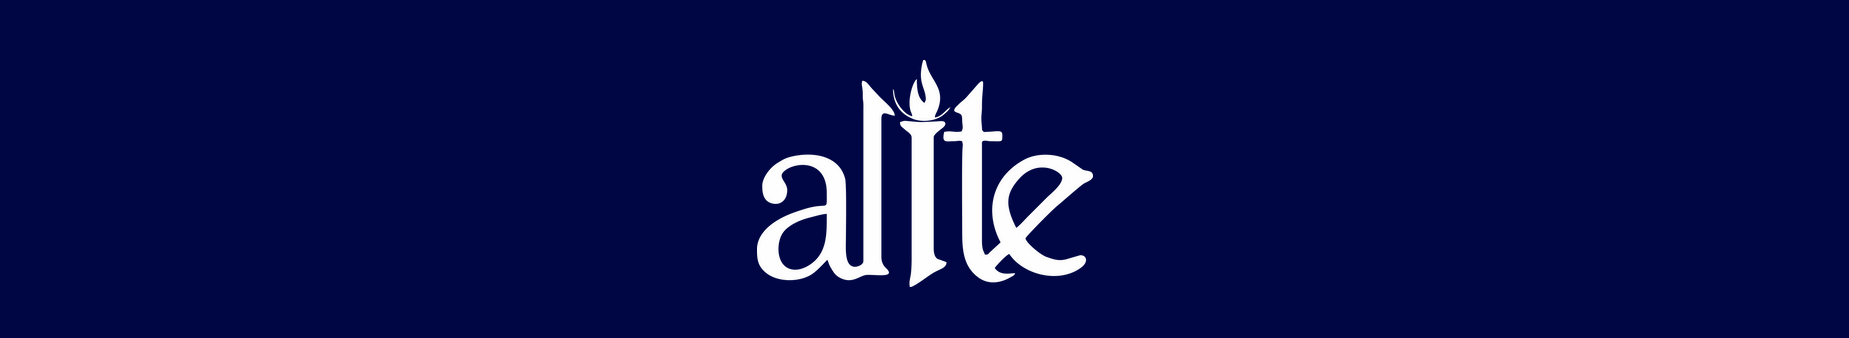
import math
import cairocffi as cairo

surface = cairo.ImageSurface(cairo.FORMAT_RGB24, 1849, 338)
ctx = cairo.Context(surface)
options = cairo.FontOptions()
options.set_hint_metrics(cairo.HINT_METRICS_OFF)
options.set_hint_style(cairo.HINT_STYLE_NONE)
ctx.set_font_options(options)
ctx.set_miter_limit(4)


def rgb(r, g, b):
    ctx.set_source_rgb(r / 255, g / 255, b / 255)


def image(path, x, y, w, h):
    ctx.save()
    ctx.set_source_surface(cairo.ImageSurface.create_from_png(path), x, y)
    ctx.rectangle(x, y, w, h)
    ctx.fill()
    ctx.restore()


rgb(0, 6, 67)
ctx.paint()
image('image0.png', 757, 60, 336, 227)
surface.write_to_png('render.png')
